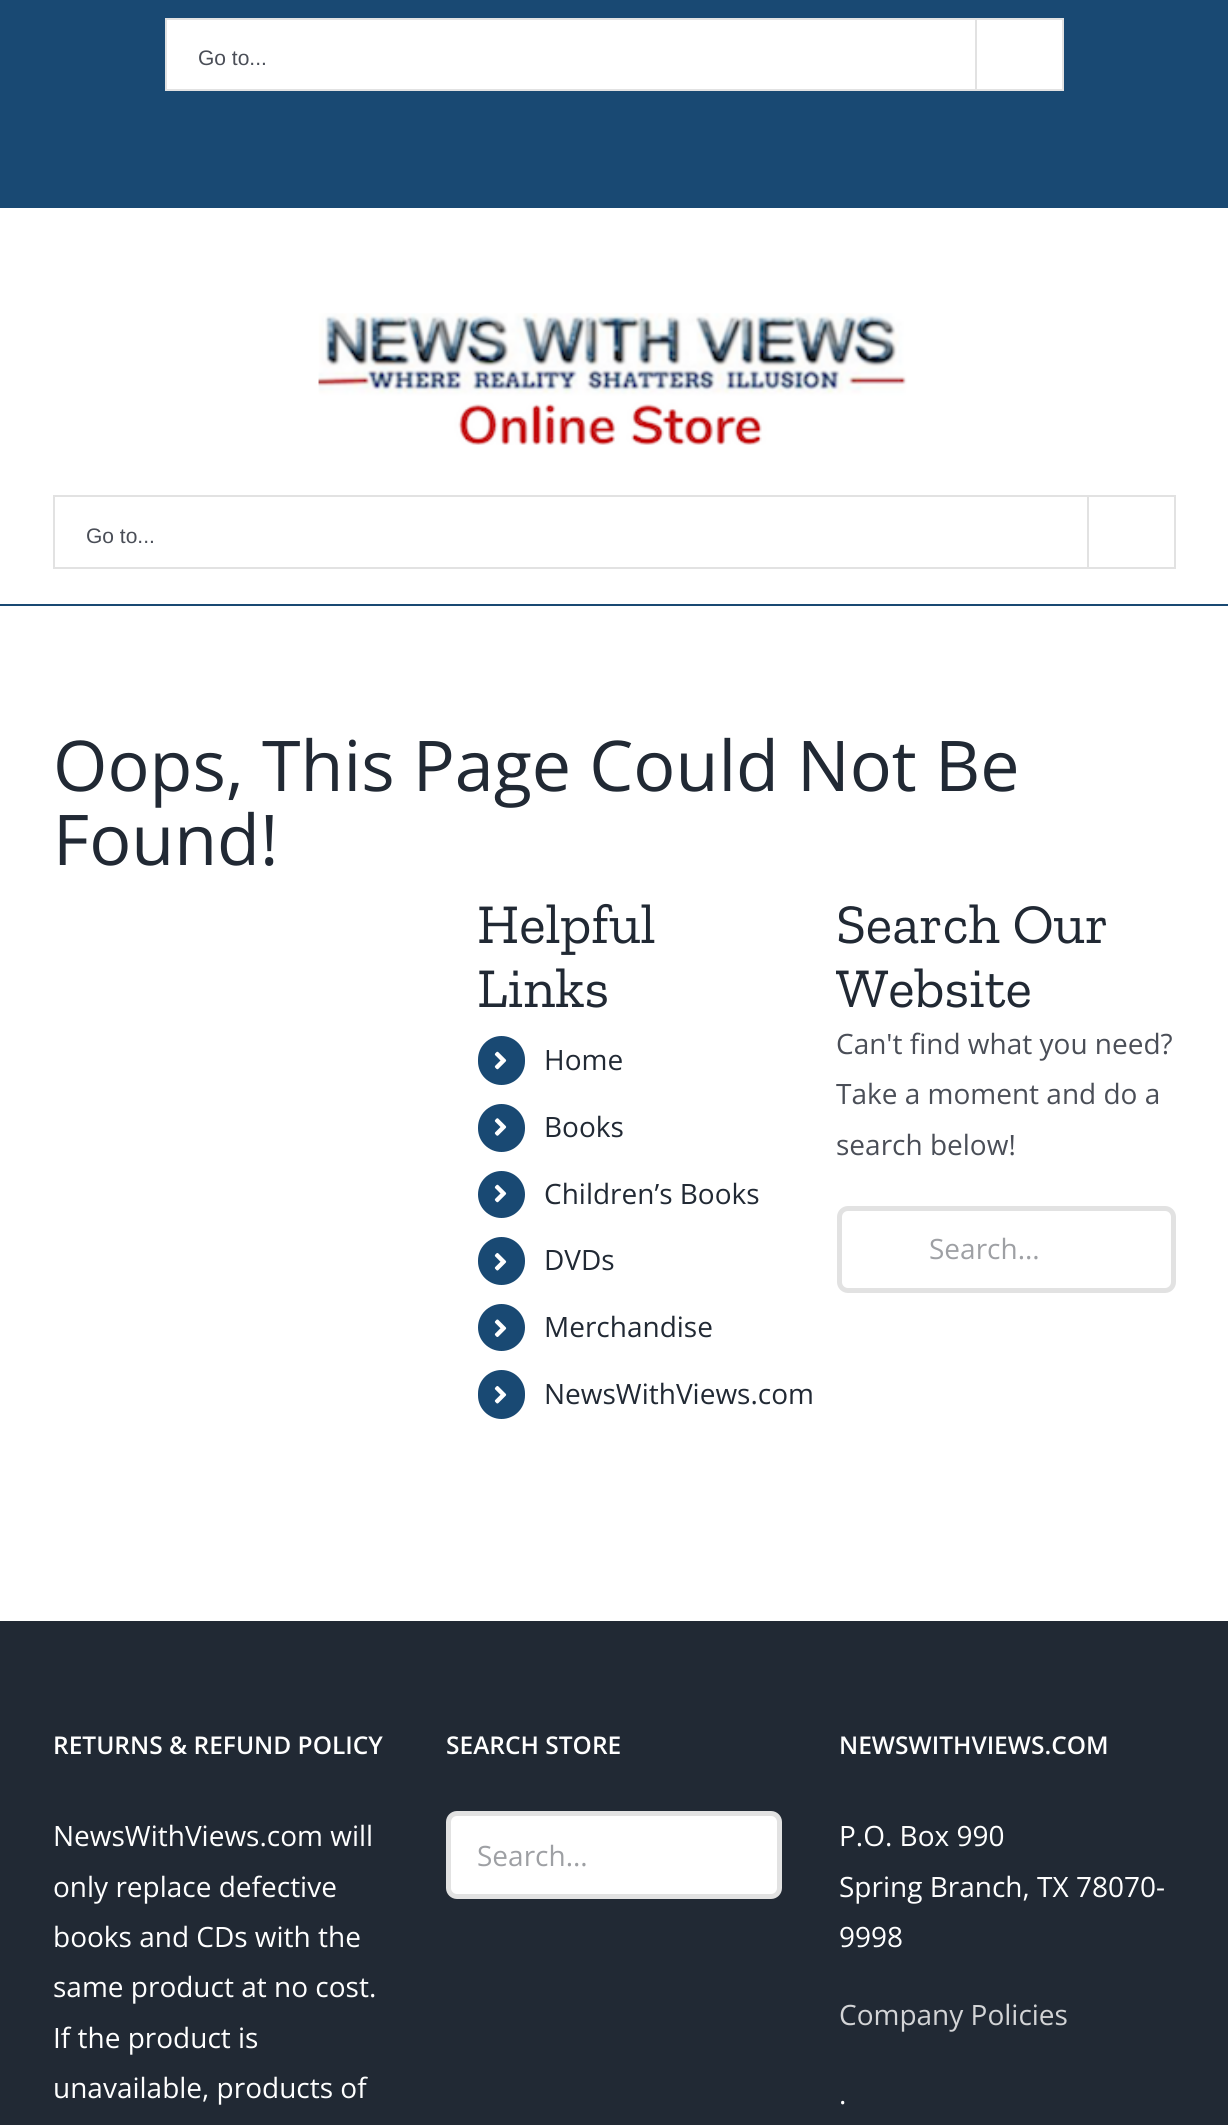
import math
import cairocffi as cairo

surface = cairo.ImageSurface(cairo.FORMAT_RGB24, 1228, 2125)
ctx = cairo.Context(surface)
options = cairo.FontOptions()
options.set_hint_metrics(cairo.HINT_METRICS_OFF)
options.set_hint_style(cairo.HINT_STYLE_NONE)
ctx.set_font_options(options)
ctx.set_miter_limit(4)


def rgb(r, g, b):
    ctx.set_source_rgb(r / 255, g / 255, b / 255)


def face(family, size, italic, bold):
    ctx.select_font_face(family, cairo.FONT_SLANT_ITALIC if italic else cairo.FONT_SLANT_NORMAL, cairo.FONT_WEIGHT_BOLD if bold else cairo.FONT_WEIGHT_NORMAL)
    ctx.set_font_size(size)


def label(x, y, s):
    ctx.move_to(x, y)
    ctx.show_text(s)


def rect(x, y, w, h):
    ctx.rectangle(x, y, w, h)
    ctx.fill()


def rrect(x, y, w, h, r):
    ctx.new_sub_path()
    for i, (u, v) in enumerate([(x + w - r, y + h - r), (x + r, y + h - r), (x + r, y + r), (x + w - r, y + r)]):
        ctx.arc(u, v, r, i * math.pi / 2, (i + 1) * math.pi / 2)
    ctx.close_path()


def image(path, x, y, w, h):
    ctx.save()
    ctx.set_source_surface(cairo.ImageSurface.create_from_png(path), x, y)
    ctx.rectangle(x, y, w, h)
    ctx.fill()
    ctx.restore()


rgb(255, 255, 255)
ctx.paint()
rgb(25, 73, 115)
rect(0, 0, 1228, 208)
rgb(255, 255, 255)
ctx.rectangle(166, 19, 897, 71)
ctx.fill_preserve()
rgb(226, 226, 226)
ctx.stroke()
face('Liberation Sans', 21, 0, 0)
rgb(74, 78, 87)
label(198, 65, 'Go to...')
rgb(226, 226, 226)
rect(975, 19, 2, 70)
rgb(25, 73, 115)
rect(0, 604, 1228, 2)
image('image0.png', 318, 313, 589, 132)
ctx.rectangle(54, 496, 1121, 72)
rgb(226, 226, 226)
ctx.stroke()
rgb(74, 78, 87)
label(86, 543, 'Go to...')
rgb(226, 226, 226)
rect(1087, 497, 2, 70)
face('Open Sans', 70, 0, 0)
rgb(33, 41, 52)
label(53, 791, 'Oops, This Page Could Not Be')
label(53, 865, 'Found!')
face('Zilla Slab', 56, 0, 0)
label(477, 943, 'Helpful')
label(477, 1007, 'Links')
rgb(25, 73, 115)
rrect(478, 1036, 47, 49, 23.5)
ctx.fill()
image('image1.png', 494, 1051, 13, 19)
face('Open Sans', 28, 0, 0)
rgb(33, 41, 52)
label(544, 1070, 'Home')
rgb(25, 73, 115)
rrect(478, 1104, 47, 48, 23.5)
ctx.fill()
image('image2.png', 494, 1118, 13, 18)
rgb(33, 41, 52)
label(544, 1137, 'Books')
rgb(25, 73, 115)
ctx.new_path()
ctx.arc(501.5, 1194.5, 23.5, 0, 2 * math.pi)
ctx.fill()
image('image1.png', 494, 1184, 13, 19)
rgb(33, 41, 52)
label(544, 1204, 'Children’s Books')
rgb(25, 73, 115)
rrect(478, 1237, 47, 48, 23.5)
ctx.fill()
image('image3.png', 494, 1253, 13, 18)
rgb(33, 41, 52)
label(544, 1270, 'DVDs')
rgb(25, 73, 115)
ctx.new_path()
ctx.arc(501.5, 1327.5, 23.5, 0, 2 * math.pi)
ctx.fill()
image('image4.png', 494, 1319, 13, 18)
rgb(33, 41, 52)
label(544, 1337, 'Merchandise')
rgb(25, 73, 115)
rrect(478, 1370, 47, 49, 23.5)
ctx.fill()
image('image3.png', 494, 1386, 13, 18)
rgb(33, 41, 52)
label(544, 1404, 'NewsWithViews.com')
face('Zilla Slab', 56, 0, 0)
label(836, 943, 'Search Our')
label(836, 1007, 'Website')
face('Open Sans', 28, 0, 0)
rgb(74, 78, 87)
label(836, 1054, 'Can\'t find what you need?')
label(836, 1104, 'Take a moment and do a')
label(836, 1155, 'search below!')
rrect(839.5, 1208.5, 334, 82, 8.5)
rgb(226, 226, 226)
ctx.set_line_width(5)
ctx.stroke()
rgb(158, 160, 164)
label(929, 1259, 'Search...')
rgb(33, 41, 52)
rect(0, 1621, 1228, 504)
face('Open Sans SemiBold', 24.5, 0, 0)
rgb(255, 255, 255)
label(53, 1754, 'RETURNS & REFUND POLICY')
face('Open Sans', 28, 0, 0)
label(53, 1846, 'NewsWithViews.com will')
label(53, 1897, 'only replace defective')
label(53, 1947, 'books and CDs with the')
label(53, 1997, 'same product at no cost.')
label(53, 2048, 'If the product is')
label(53, 2098, 'unavailable, products of')
face('Open Sans SemiBold', 24.5, 0, 0)
label(446, 1754, 'SEARCH STORE')
rrect(448.5, 1813.5, 331, 83, 8.5)
ctx.fill_preserve()
rgb(226, 226, 226)
ctx.stroke()
face('Open Sans', 28, 0, 0)
rgb(158, 160, 164)
label(477, 1866, 'Search...')
face('Open Sans SemiBold', 24.5, 0, 0)
rgb(255, 255, 255)
label(839, 1754, 'NEWSWITHVIEWS.COM')
face('Open Sans', 28, 0, 0)
label(839, 1846, 'P.O. Box 990')
label(839, 1897, 'Spring Branch, TX 78070-')
label(839, 1947, '9998')
rgb(211, 212, 214)
label(839, 2025, 'Company Policies')
rgb(255, 255, 255)
label(839, 2104, '.')
surface.write_to_png('render.png')
